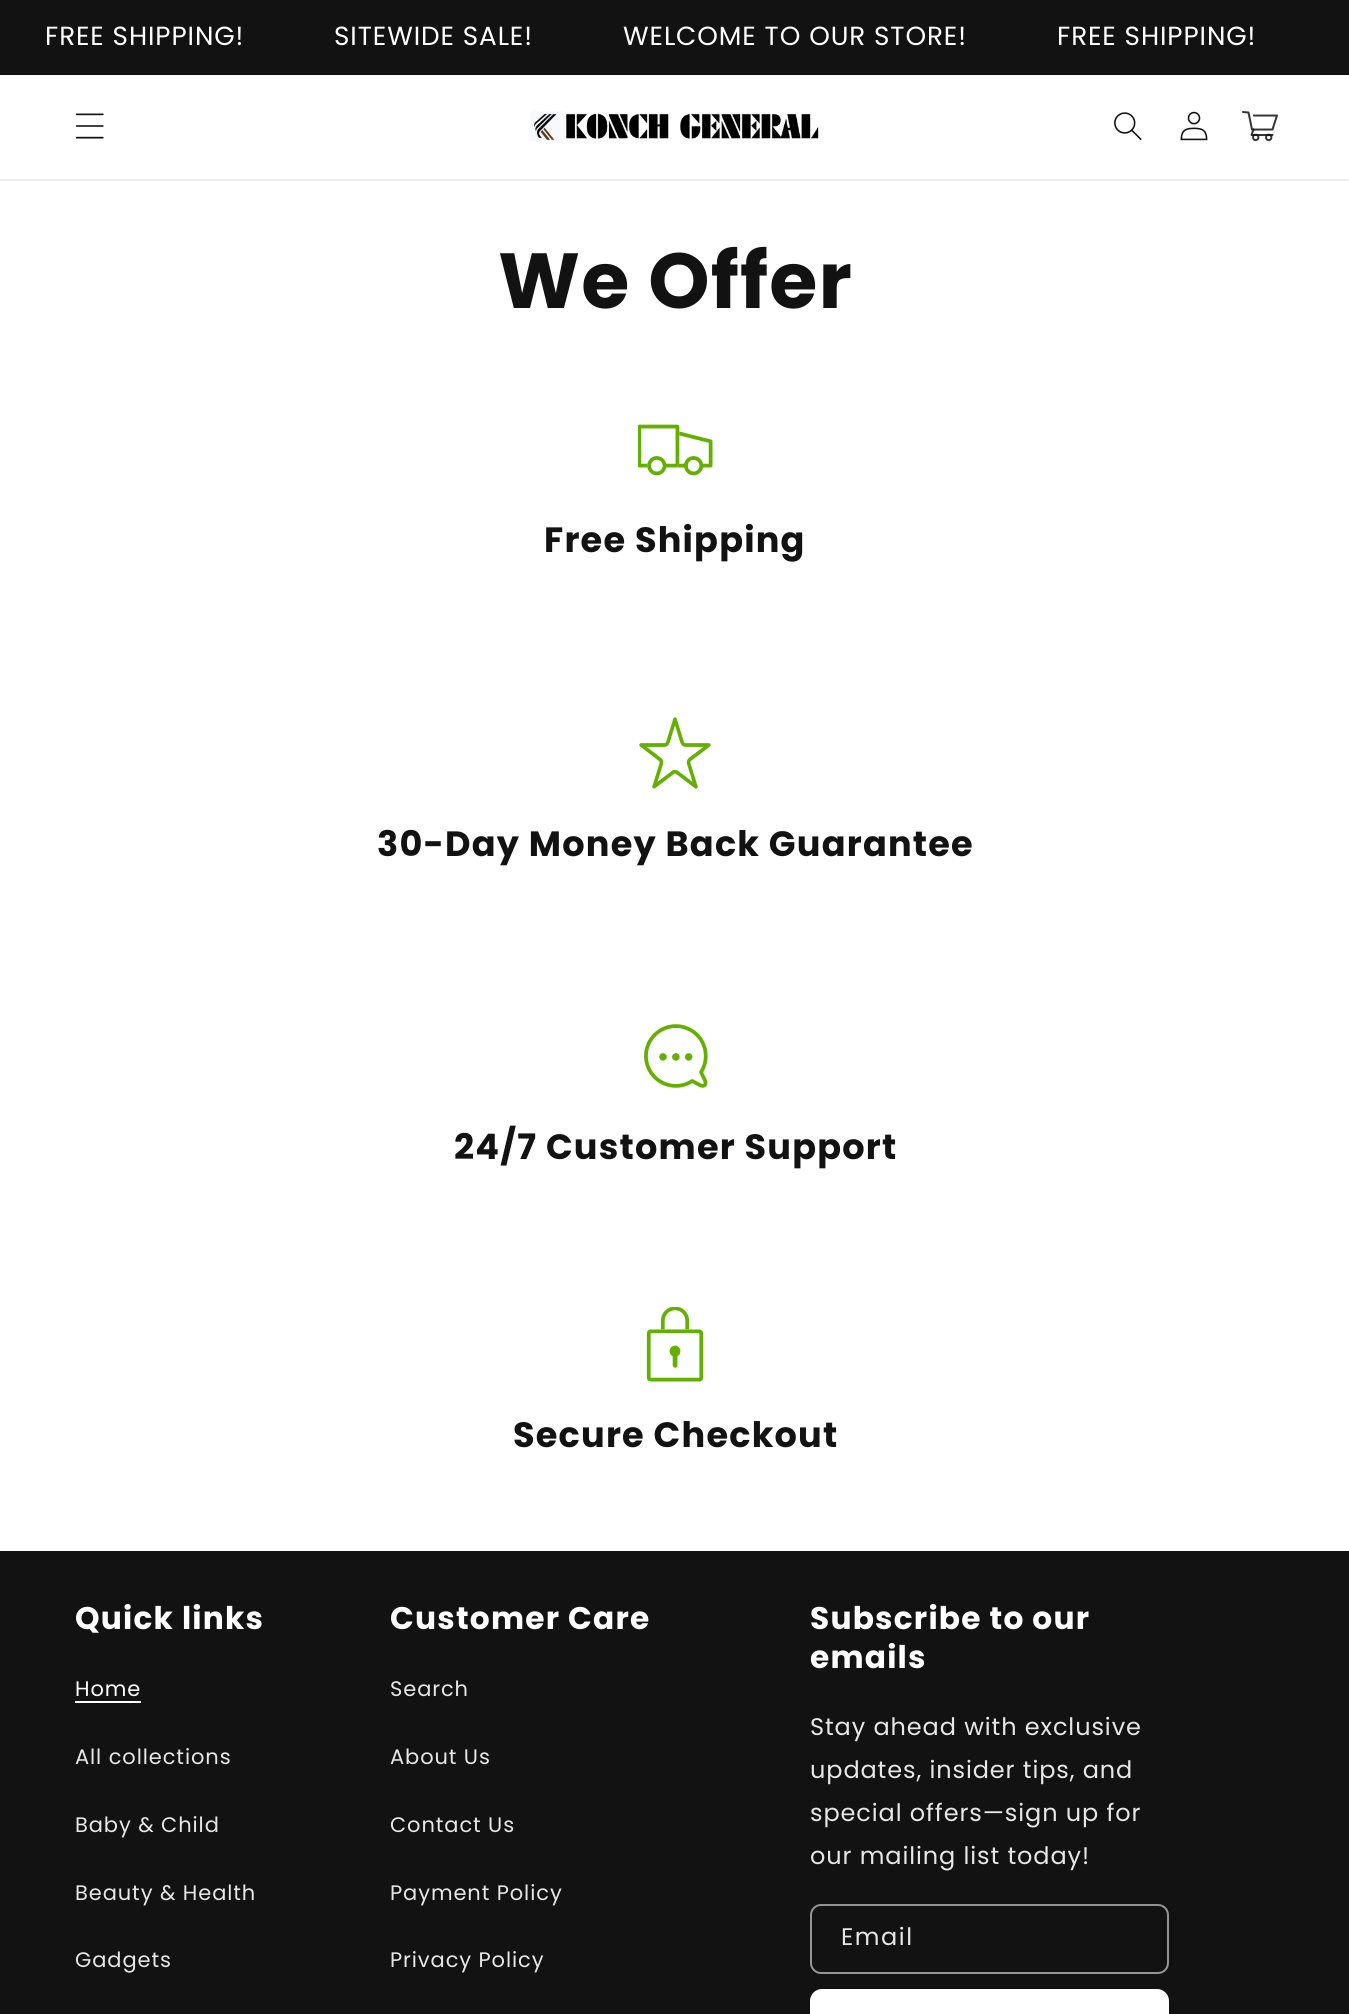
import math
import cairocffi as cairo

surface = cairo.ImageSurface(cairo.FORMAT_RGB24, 1349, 2014)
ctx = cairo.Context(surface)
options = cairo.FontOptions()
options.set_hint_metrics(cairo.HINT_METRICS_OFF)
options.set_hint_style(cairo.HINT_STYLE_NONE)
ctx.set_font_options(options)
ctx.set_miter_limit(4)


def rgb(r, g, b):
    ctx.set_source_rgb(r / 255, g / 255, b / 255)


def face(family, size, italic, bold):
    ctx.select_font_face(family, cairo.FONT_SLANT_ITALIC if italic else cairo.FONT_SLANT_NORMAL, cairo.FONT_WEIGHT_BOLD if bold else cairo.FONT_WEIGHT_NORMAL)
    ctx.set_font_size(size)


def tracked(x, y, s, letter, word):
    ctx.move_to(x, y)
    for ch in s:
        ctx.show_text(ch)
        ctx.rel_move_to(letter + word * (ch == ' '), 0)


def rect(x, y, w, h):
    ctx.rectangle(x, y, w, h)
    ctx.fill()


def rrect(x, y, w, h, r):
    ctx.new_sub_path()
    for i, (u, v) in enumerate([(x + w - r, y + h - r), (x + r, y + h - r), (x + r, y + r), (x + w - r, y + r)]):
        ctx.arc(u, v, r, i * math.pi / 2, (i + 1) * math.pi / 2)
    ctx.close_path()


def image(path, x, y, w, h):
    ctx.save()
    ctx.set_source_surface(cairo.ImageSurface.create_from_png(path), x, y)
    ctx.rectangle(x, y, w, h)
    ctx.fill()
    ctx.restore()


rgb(255, 255, 255)
ctx.paint()
rgb(18, 18, 18)
rect(0, 0, 1349, 75)
face('Poppins', 26.25, 0, 0)
rgb(255, 255, 255)
tracked(45, 45, 'FREE SHIPPING!', 0.9, 0)
tracked(334, 45, 'SITEWIDE SALE!', 0.9, 0)
tracked(623, 45, 'WELCOME TO OUR STORE!', 0.9, 0)
tracked(1057, 45, 'FREE SHIPPING!', 0.9, 0)
rgb(236, 236, 236)
rect(0, 179, 1349, 2)
image('image0.png', 75, 113, 29, 26)
image('image1.png', 530, 111, 290, 31)
image('image2.png', 1114, 112, 28, 28)
image('image3.png', 1180, 111, 28, 30)
ctx.new_path()
ctx.move_to(1243, 112)
ctx.line_to(1248.5, 112.5)
ctx.line_to(1252, 129.5)
ctx.line_to(1272.5, 129.5)
ctx.line_to(1277, 115.5)
ctx.line_to(1254, 115.5)
rgb(54, 54, 54)
ctx.set_line_cap(cairo.LINE_CAP_ROUND)
ctx.set_line_join(cairo.LINE_JOIN_ROUND)
ctx.stroke()
ctx.arc(1255.7, 137.4, 2.7, 0, 2 * math.pi)
ctx.set_line_cap(cairo.LINE_CAP_BUTT)
ctx.set_line_join(cairo.LINE_JOIN_MITER)
ctx.stroke()
ctx.arc(1268.7, 137.4, 2.7, 0, 2 * math.pi)
ctx.stroke()
ctx.new_path()
ctx.move_to(1272.5, 135)
ctx.line_to(1251.5, 135)
ctx.line_to(1253.5, 129.5)
ctx.set_source_rgba(0.071, 0.071, 0.071, 0.85)
ctx.set_line_cap(cairo.LINE_CAP_ROUND)
ctx.set_line_join(cairo.LINE_JOIN_ROUND)
ctx.stroke()
face('Poppins', 78, 0, 1)
rgb(18, 18, 18)
tracked(498, 308, 'We Offer', 1.2, 0)
image('image4.png', 638, 424, 75, 52)
face('Poppins', 35.1, 0, 1)
tracked(544, 552, 'Free Shipping', 1.2, 0)
image('image5.png', 639, 717, 72, 72)
tracked(377, 856, '30-Day Money Back Guarantee', 1.2, 0)
image('image6.png', 644, 1024, 64, 64)
tracked(454, 1159, '24/7 Customer Support', 1.2, 0)
image('image7.png', 646, 1307, 58, 75)
tracked(513, 1447, 'Secure Checkout', 1.2, 0)
rect(0, 1551, 1349, 463)
face('Poppins', 31.25, 0, 1)
rgb(255, 255, 255)
tracked(75, 1629, 'Quick links', 1.2, 0)
face('Poppins', 21, 0, 0)
tracked(75, 1696, 'Home', 0.9, 0)
rect(75, 1701, 66, 2)
rgb(231, 231, 231)
tracked(75, 1764, 'All collections', 0.9, 0)
tracked(75, 1832, 'Baby & Child', 0.9, 0)
tracked(75, 1900, 'Beauty & Health', 0.9, 0)
tracked(75, 1967, 'Gadgets', 0.9, 0)
face('Poppins', 31.25, 0, 1)
rgb(255, 255, 255)
tracked(390, 1629, 'Customer Care', 1.2, 0)
face('Poppins', 21, 0, 0)
rgb(231, 231, 231)
tracked(390, 1696, 'Search', 0.9, 0)
tracked(390, 1764, 'About Us', 0.9, 0)
tracked(390, 1832, 'Contact Us', 0.9, 0)
tracked(390, 1900, 'Payment Policy', 0.9, 0)
tracked(390, 1967, 'Privacy Policy', 0.9, 0)
face('Poppins', 31.25, 0, 1)
rgb(255, 255, 255)
tracked(810, 1629, 'Subscribe to our', 1.2, 0)
tracked(810, 1668, 'emails', 1.2, 0)
face('Poppins', 24, 0, 0)
rgb(231, 231, 231)
tracked(810, 1735, 'Stay ahead with exclusive', 0.9, 0)
tracked(810, 1778, 'updates, insider tips, and', 0.9, 0)
tracked(810, 1821, 'special offers—sign up for', 0.9, 0)
tracked(810, 1864, 'our mailing list today!', 0.9, 0)
rrect(811, 1905, 357, 68, 10)
rgb(148, 148, 148)
ctx.set_line_cap(cairo.LINE_CAP_BUTT)
ctx.set_line_join(cairo.LINE_JOIN_MITER)
ctx.stroke()
rgb(231, 231, 231)
tracked(841, 1945, 'Email', 1.5, 0)
rgb(255, 255, 255)
rrect(811.5, 1990.5, 356, 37, 10.5)
ctx.fill_preserve()
ctx.set_line_width(3)
ctx.stroke()
surface.write_to_png('render.png')
